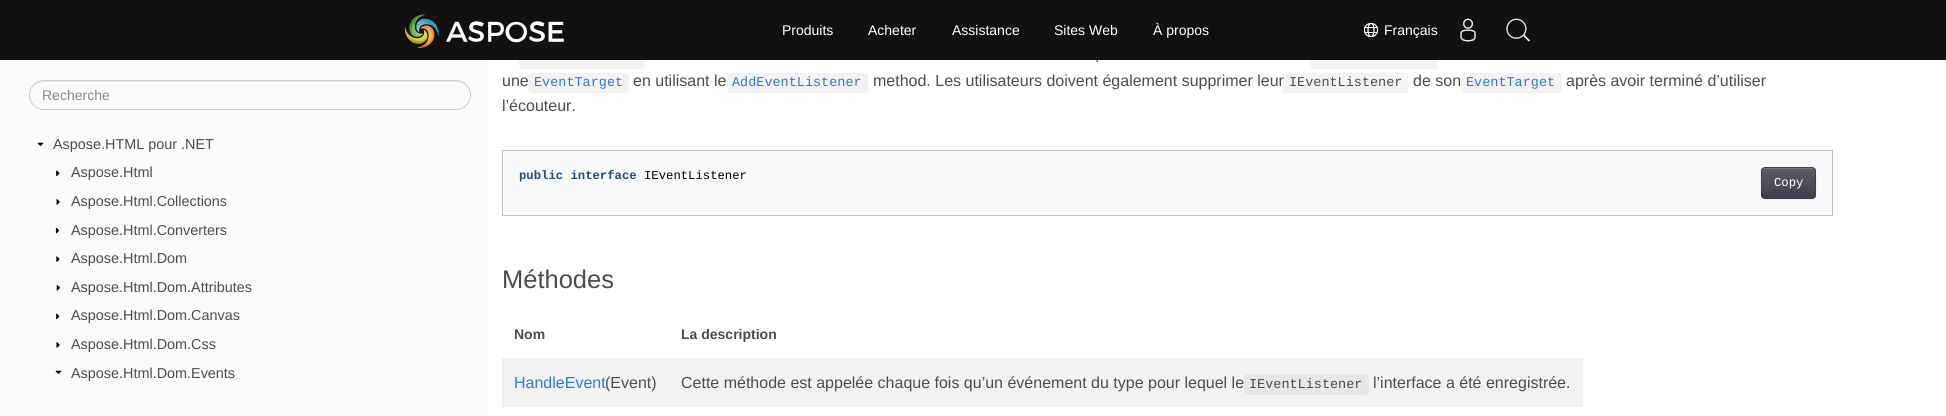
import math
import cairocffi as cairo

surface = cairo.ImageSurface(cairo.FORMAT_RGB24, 1946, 416)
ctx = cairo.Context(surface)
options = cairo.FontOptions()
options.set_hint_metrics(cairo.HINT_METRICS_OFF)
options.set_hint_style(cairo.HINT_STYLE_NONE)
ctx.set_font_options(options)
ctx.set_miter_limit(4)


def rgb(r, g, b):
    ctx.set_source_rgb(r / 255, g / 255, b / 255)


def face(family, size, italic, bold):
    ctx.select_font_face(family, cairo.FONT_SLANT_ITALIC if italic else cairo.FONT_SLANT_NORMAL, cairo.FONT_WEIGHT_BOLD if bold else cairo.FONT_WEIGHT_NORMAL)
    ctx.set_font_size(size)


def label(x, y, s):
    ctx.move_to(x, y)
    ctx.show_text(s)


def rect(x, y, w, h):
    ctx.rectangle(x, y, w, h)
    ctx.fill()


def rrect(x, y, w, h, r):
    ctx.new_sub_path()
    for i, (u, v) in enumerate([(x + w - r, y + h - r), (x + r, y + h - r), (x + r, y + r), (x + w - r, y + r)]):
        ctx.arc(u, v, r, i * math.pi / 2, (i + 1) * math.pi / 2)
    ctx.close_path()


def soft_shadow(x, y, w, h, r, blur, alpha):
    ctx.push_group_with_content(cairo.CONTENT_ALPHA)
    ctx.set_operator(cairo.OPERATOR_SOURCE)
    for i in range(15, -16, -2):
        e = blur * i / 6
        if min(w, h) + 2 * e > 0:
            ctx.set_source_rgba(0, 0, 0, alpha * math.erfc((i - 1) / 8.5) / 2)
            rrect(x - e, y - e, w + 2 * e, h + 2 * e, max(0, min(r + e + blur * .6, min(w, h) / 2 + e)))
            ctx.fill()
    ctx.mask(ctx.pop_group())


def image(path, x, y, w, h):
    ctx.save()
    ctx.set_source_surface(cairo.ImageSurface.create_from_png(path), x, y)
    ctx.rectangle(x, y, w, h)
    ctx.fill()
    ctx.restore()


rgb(255, 255, 255)
ctx.paint()
rgb(242, 242, 242)
rrect(519, 48, 125, 21, 4)
ctx.fill()
rgb(17, 17, 17)
rect(0, 0, 1946, 60)
image('image0.png', 404, 14, 160, 35)
face('Liberation Sans', 14, 0, 0)
rgb(255, 255, 255)
label(782, 35, 'Produits')
label(868, 35, 'Acheter')
label(952, 35, 'Assistance')
label(1054, 35, 'Sites Web')
label(1153, 35, 'À propos')
image('image1.png', 1364, 23, 15, 14)
label(1384, 35, 'Français')
image('image2.png', 1460, 18, 16, 24)
image('image3.png', 1506, 18, 24, 24)
rgb(249, 251, 252)
rect(0, 60, 487, 356)
rgb(230, 232, 233)
ctx.new_path()
ctx.move_to(44, 82)
ctx.line_to(456, 82)
ctx.curve_to(464, 82, 470, 88, 470, 95)
ctx.curve_to(470, 91, 468, 86, 464, 83)
ctx.curve_to(462, 82, 459, 81, 456, 81)
ctx.line_to(44, 81)
ctx.curve_to(36, 81, 30, 88, 30, 95)
ctx.curve_to(30, 88, 36, 82, 44, 82)
ctx.close_path()
ctx.fill()
rrect(29.5, 80.5, 441, 29, 14.5)
rgb(204, 204, 204)
ctx.set_line_width(1)
ctx.stroke()
rgb(136, 136, 136)
label(42, 100, 'Recherche')
image('image4.png', 37, 142, 7, 4)
face('Liberation Sans', 14.4, 0, 0)
rgb(76, 76, 76)
label(53, 149, 'Aspose.HTML pour .NET')
image('image5.png', 56, 170, 4, 7)
label(71, 177, 'Aspose.Html')
image('image6.png', 56, 199, 4, 6)
label(71, 206, 'Aspose.Html.Collections')
image('image7.png', 55, 227, 5, 7)
label(71, 235, 'Aspose.Html.Converters')
image('image8.png', 56, 256, 4, 6)
label(71, 263, 'Aspose.Html.Dom')
image('image9.png', 56, 285, 4, 6)
label(71, 292, 'Aspose.Html.Dom.Attributes')
image('image10.png', 56, 313, 4, 7)
label(71, 320, 'Aspose.Html.Dom.Canvas')
image('image11.png', 56, 342, 4, 6)
label(71, 349, 'Aspose.Html.Dom.Css')
image('image4.png', 55, 370, 7, 4)
label(71, 378, 'Aspose.Html.Dom.Events')
face('Liberation Sans', 16, 0, 0)
label(1095, 62, '.')
ctx.set_source_rgba(0, 0, 0, 0.05)
rect(1311, 60, 126, 9)
rgb(76, 76, 76)
label(502, 86, 'une')
rgb(242, 242, 242)
rrect(528, 73, 101, 20, 4)
ctx.fill()
face('Liberation Mono', 13.5, 0, 0)
rgb(49, 118, 217)
label(534, 86, 'EventTarget')
face('Liberation Sans', 16, 0, 0)
rgb(76, 76, 76)
label(633, 86, 'en utilisant le')
rgb(242, 242, 242)
rrect(727, 73, 141, 20, 4)
ctx.fill()
face('Liberation Mono', 13.5, 0, 0)
rgb(49, 118, 217)
label(732, 86, 'AddEventListener')
face('Liberation Sans', 16, 0, 0)
rgb(76, 76, 76)
label(873, 86, 'method. Les utilisateurs doivent également supprimer leur')
ctx.set_source_rgba(0, 0, 0, 0.05)
rect(1283, 73, 125, 20)
face('Liberation Mono', 13.5, 0, 0)
rgb(76, 76, 76)
label(1289, 86, 'IEventListener')
face('Liberation Sans', 16, 0, 0)
label(1413, 86, 'de son')
rgb(242, 242, 242)
rrect(1461, 73, 101, 20, 4)
ctx.fill()
face('Liberation Mono', 13.5, 0, 0)
rgb(49, 118, 217)
label(1466, 86, 'EventTarget')
face('Liberation Sans', 16, 0, 0)
rgb(76, 76, 76)
label(1566, 86, 'après avoir terminé d’utiliser')
label(502, 111, 'l’écouteur.')
rgb(248, 249, 250)
ctx.rectangle(502.5, 150.5, 1330, 65)
ctx.fill_preserve()
rgb(194, 194, 194)
ctx.stroke()
face('Liberation Mono', 12.25, 0, 1)
rgb(32, 74, 135)
label(519, 179, 'public interface')
face('Liberation Mono', 12.25, 0, 0)
rgb(0, 0, 0)
label(644, 179, 'IEventListener')
rgb(0, 0, 0)
soft_shadow(1761, 168, 55, 32, 4, 0.5, 0.07)
ctx.save()
rrect(1761, 167, 55, 32, 4)
ctx.clip()
gradient = cairo.LinearGradient(1789, 168, 1789, 198)
gradient.add_color_stop_rgba(0, 0.365, 0.361, 0.404, 1)
gradient.add_color_stop_rgba(1, 0.251, 0.247, 0.298, 1)
ctx.set_source(gradient)
rect(1761, 168, 55, 30)
ctx.restore()
rgb(117, 116, 126)
ctx.new_path()
ctx.move_to(1765, 169)
ctx.line_to(1812, 169)
ctx.curve_to(1814, 169, 1815, 170, 1815, 172)
ctx.curve_to(1815, 166, 1809, 168, 1804, 168)
ctx.line_to(1773, 168)
ctx.curve_to(1768, 168, 1762, 166, 1762, 172)
ctx.curve_to(1762, 170, 1763, 169, 1765, 169)
ctx.close_path()
ctx.fill()
rrect(1761.5, 167.5, 54, 31, 3.5)
rgb(64, 63, 76)
ctx.stroke()
rgb(255, 255, 255)
label(1774, 186, 'Copy')
face('Liberation Sans', 25.5, 0, 0)
rgb(76, 76, 76)
label(502, 288, 'Méthodes')
face('Liberation Sans', 14, 0, 1)
label(514, 339, 'Nom')
label(681, 339, 'La description')
rgb(242, 242, 242)
rect(502, 358, 1081, 49)
face('Liberation Sans', 16, 0, 0)
rgb(49, 118, 217)
label(514, 388, 'HandleEvent')
rgb(76, 76, 76)
label(605, 388, '(Event)')
label(681, 388, 'Cette méthode est appelée chaque fois qu’un événement du type pour lequel le')
rgb(230, 230, 230)
rrect(1244, 374, 125, 21, 4)
ctx.fill()
face('Liberation Mono', 13.5, 0, 0)
rgb(76, 76, 76)
label(1249, 388, 'IEventListener')
face('Liberation Sans', 16, 0, 0)
label(1373, 388, 'l’interface a été enregistrée.')
surface.write_to_png('render.png')
